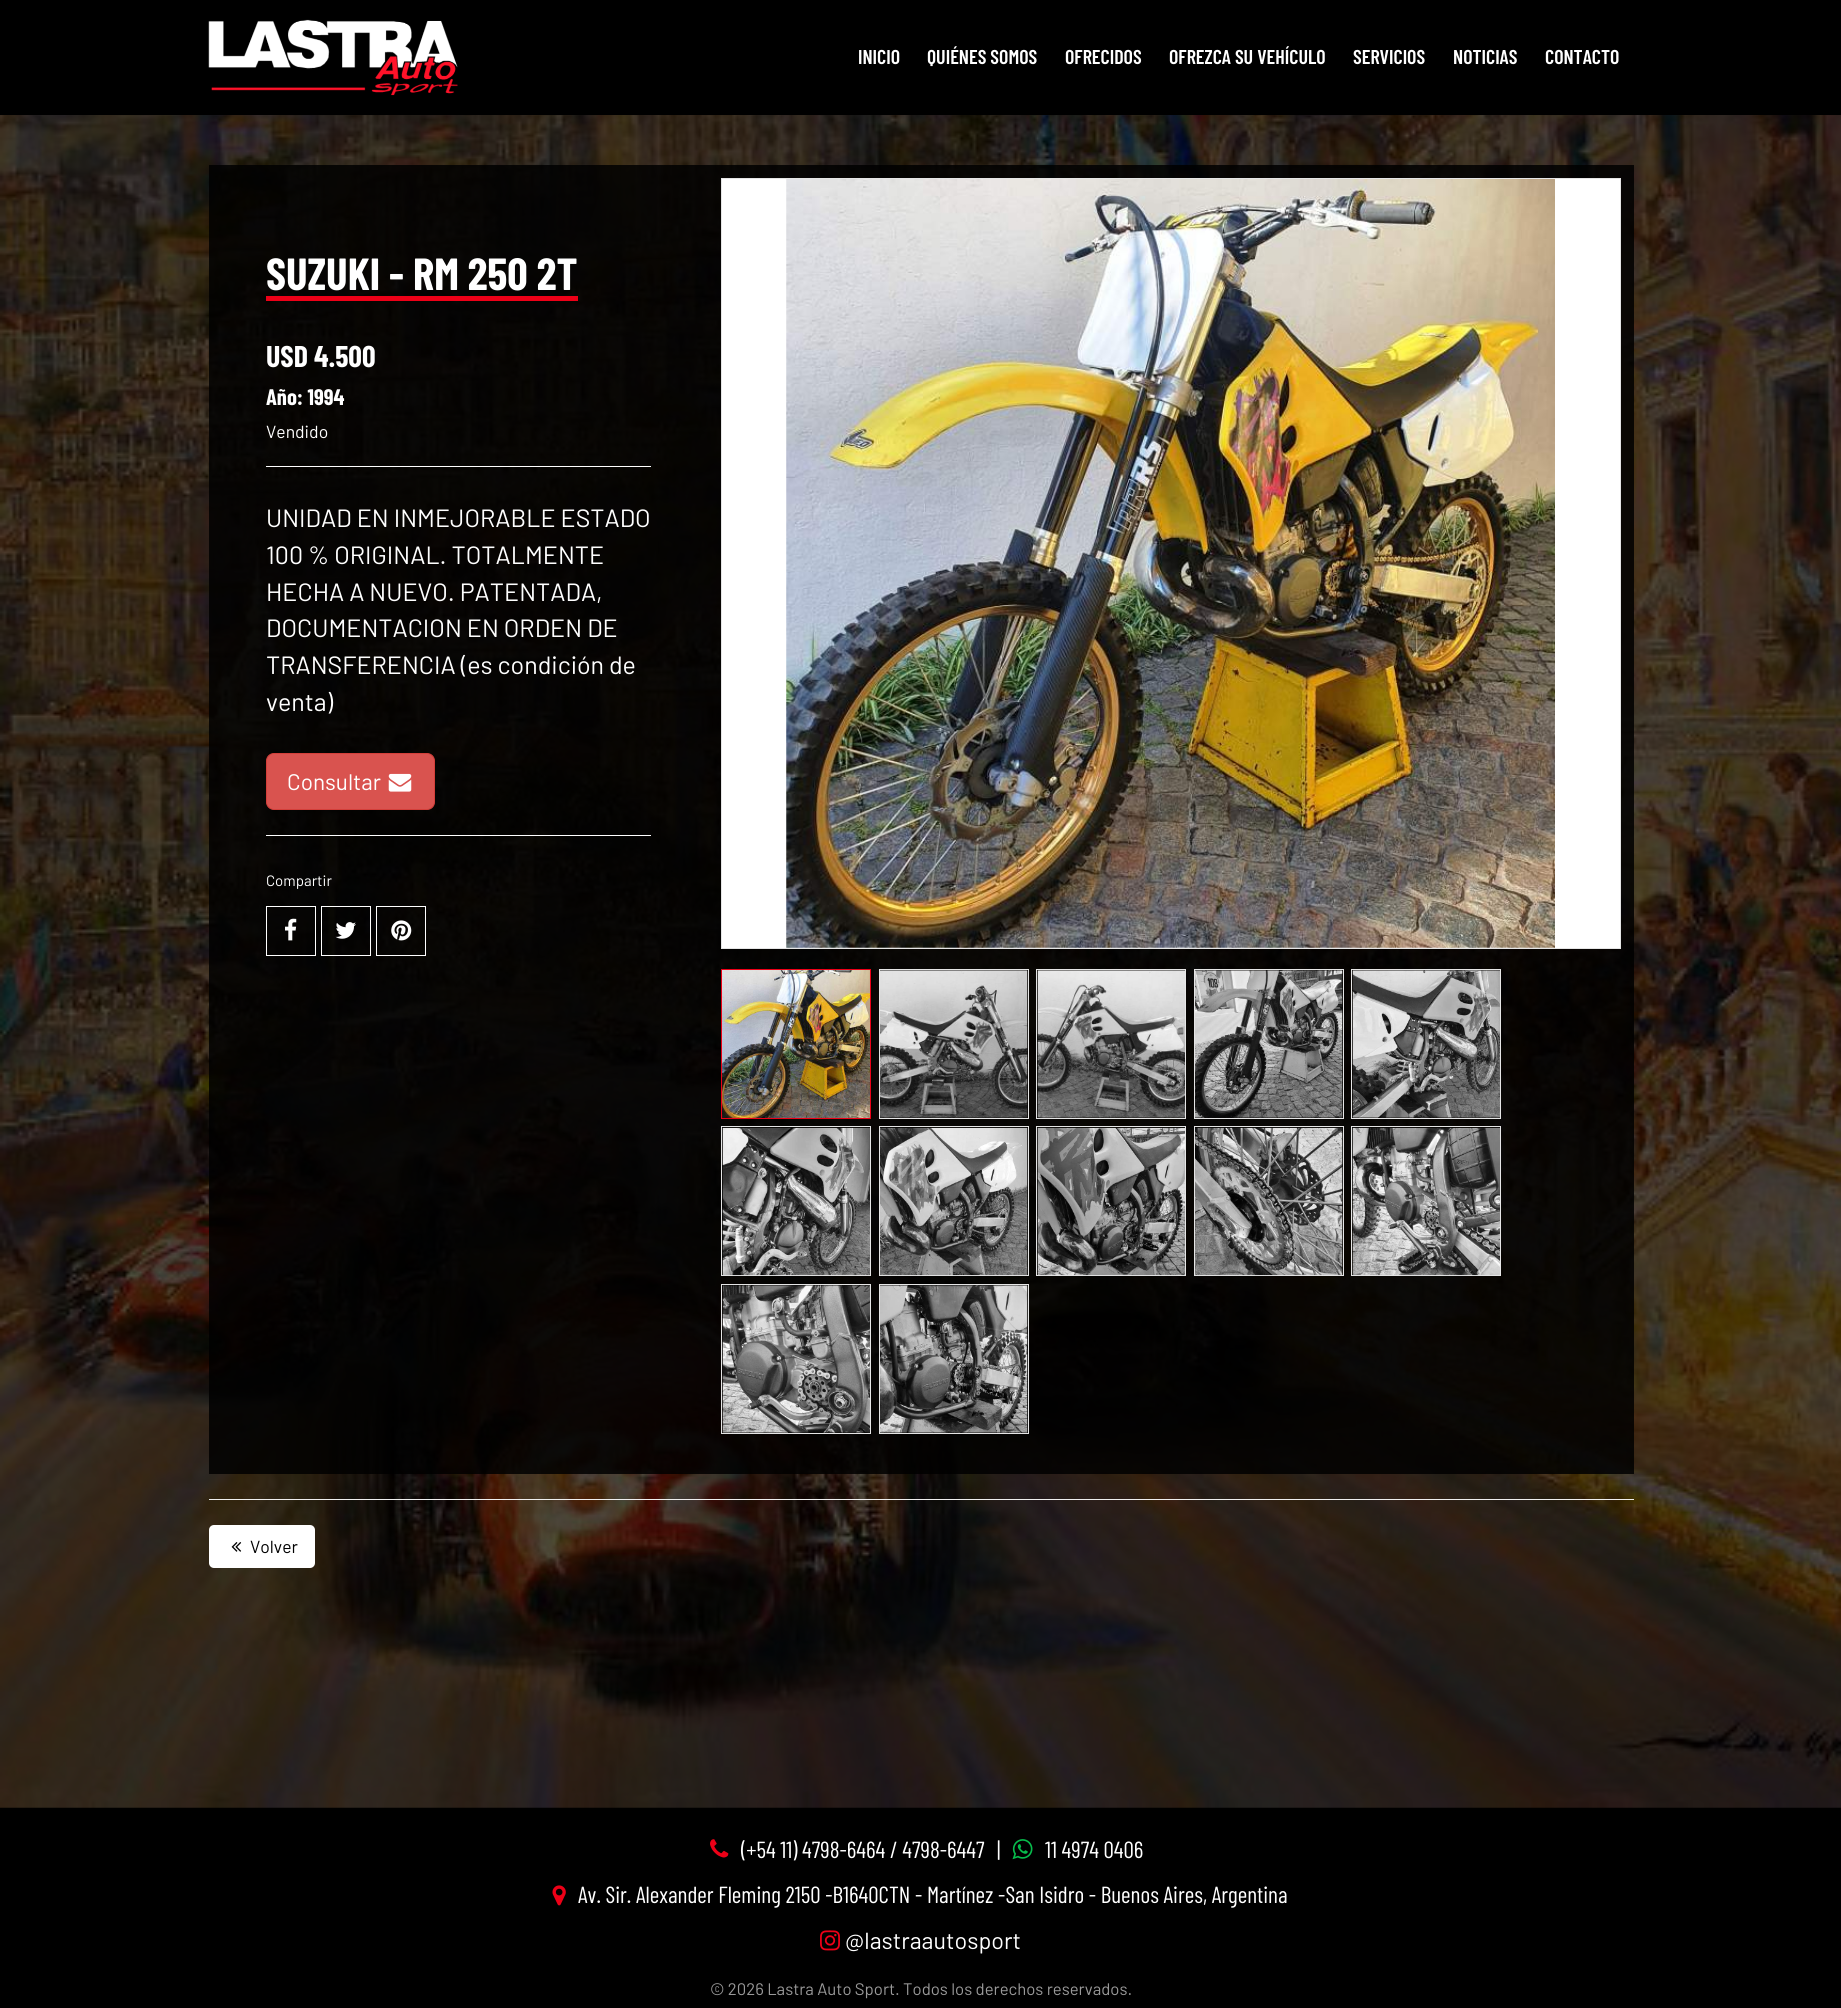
import math
import cairocffi as cairo

surface = cairo.ImageSurface(cairo.FORMAT_RGB24, 1841, 2008)
ctx = cairo.Context(surface)
options = cairo.FontOptions()
options.set_hint_metrics(cairo.HINT_METRICS_OFF)
options.set_hint_style(cairo.HINT_STYLE_NONE)
ctx.set_font_options(options)
ctx.set_miter_limit(4)


def rgb(r, g, b):
    ctx.set_source_rgb(r / 255, g / 255, b / 255)


def face(family, size, italic, bold):
    ctx.select_font_face(family, cairo.FONT_SLANT_ITALIC if italic else cairo.FONT_SLANT_NORMAL, cairo.FONT_WEIGHT_BOLD if bold else cairo.FONT_WEIGHT_NORMAL)
    ctx.set_font_size(size)


def label(x, y, s):
    ctx.move_to(x, y)
    ctx.show_text(s)


def rect(x, y, w, h):
    ctx.rectangle(x, y, w, h)
    ctx.fill()


def rrect(x, y, w, h, r):
    ctx.new_sub_path()
    for i, (u, v) in enumerate([(x + w - r, y + h - r), (x + r, y + h - r), (x + r, y + r), (x + w - r, y + r)]):
        ctx.arc(u, v, r, i * math.pi / 2, (i + 1) * math.pi / 2)
    ctx.close_path()


def image(path, x, y, w, h):
    ctx.save()
    ctx.set_source_surface(cairo.ImageSurface.create_from_png(path), x, y)
    ctx.rectangle(x, y, w, h)
    ctx.fill()
    ctx.restore()


rgb(0, 0, 0)
ctx.paint()
image('image0.png', 208, 19, 250, 77)
face('Barlow Condensed SemiBold', 20, 0, 0)
rgb(255, 255, 255)
label(858, 64, 'INICIO')
label(927, 64, 'QUIÉNES SOMOS')
label(1065, 64, 'OFRECIDOS')
label(1169, 64, 'OFREZCA SU VEHÍCULO')
label(1353, 64, 'SERVICIOS')
label(1453, 64, 'NOTICIAS')
label(1545, 64, 'CONTACTO')
image('image1.png', 0, 115, 1841, 1693)
ctx.set_source_rgba(0, 0, 0, 0.85)
rect(209, 165, 1425, 1309)
rgb(237, 0, 23)
rect(266, 296, 312, 5)
face('Barlow Condensed', 45, 0, 1)
rgb(255, 255, 255)
label(266, 290, 'SUZUKI - RM 250 2T')
face('Barlow Condensed', 30, 0, 1)
label(266, 367, 'USD 4.500')
face('Barlow Condensed', 22.5, 0, 1)
label(266, 405, 'Año: 1994')
face('Barlow', 17.5, 0, 0)
label(266, 438, 'Vendido')
rect(266, 466, 385, 1)
face('Barlow', 25, 0, 0)
label(266, 527, 'UNIDAD EN INMEJORABLE ESTADO')
label(266, 564, '100 % ORIGINAL. TOTALMENTE')
label(266, 601, 'HECHA A NUEVO. PATENTADA,')
label(266, 637, 'DOCUMENTACION EN ORDEN DE')
label(266, 674, 'TRANSFERENCIA (es condición de')
label(266, 711, 'venta)')
rgb(217, 83, 79)
rrect(266.5, 753.5, 168, 56, 7.5)
ctx.fill_preserve()
rgb(212, 63, 58)
ctx.set_line_width(1)
ctx.stroke()
face('Barlow', 22.5, 0, 0)
rgb(255, 255, 255)
label(287, 790, 'Consultar')
image('image2.png', 388, 773, 24, 19)
rect(266, 835, 385, 1)
face('Barlow', 15, 0, 0)
label(266, 886, 'Compartir')
ctx.rectangle(266.5, 906.5, 49, 49)
ctx.stroke()
image('image3.png', 285, 918, 12, 23)
ctx.rectangle(321.5, 906.5, 49, 49)
ctx.stroke()
image('image4.png', 335, 922, 21, 17)
ctx.rectangle(376.5, 906.5, 49, 49)
ctx.stroke()
image('image5.png', 391, 920, 21, 21)
rect(722, 179, 898, 769)
image('image6.png', 786, 179, 769, 769)
ctx.rectangle(721.5, 178.5, 899, 770)
rgb(230, 230, 230)
ctx.stroke()
ctx.rectangle(721.5, 969.5, 149, 149)
rgb(237, 0, 23)
ctx.stroke()
image('image7.png', 722, 970, 148, 148)
ctx.rectangle(879.5, 969.5, 149, 149)
rgb(230, 230, 230)
ctx.stroke()
image('image8.png', 880, 970, 148, 148)
ctx.rectangle(1036.5, 969.5, 149, 149)
ctx.stroke()
image('image9.png', 1037, 970, 148, 148)
ctx.rectangle(1194.5, 969.5, 149, 149)
ctx.stroke()
image('image10.png', 1195, 970, 148, 148)
ctx.rectangle(1351.5, 969.5, 149, 149)
ctx.stroke()
image('image11.png', 1352, 970, 148, 148)
ctx.rectangle(721.5, 1126.5, 149, 149)
ctx.stroke()
image('image12.png', 722, 1127, 148, 149)
ctx.rectangle(879.5, 1126.5, 149, 149)
ctx.stroke()
image('image13.png', 880, 1127, 148, 149)
ctx.rectangle(1036.5, 1126.5, 149, 149)
ctx.stroke()
image('image14.png', 1037, 1127, 148, 149)
ctx.rectangle(1194.5, 1126.5, 149, 149)
ctx.stroke()
image('image15.png', 1195, 1127, 148, 149)
ctx.rectangle(1351.5, 1126.5, 149, 149)
ctx.stroke()
image('image16.png', 1352, 1127, 148, 149)
ctx.rectangle(721.5, 1284.5, 149, 149)
ctx.stroke()
image('image17.png', 722, 1285, 148, 148)
ctx.rectangle(879.5, 1284.5, 149, 149)
ctx.stroke()
image('image18.png', 880, 1285, 148, 148)
rgb(238, 238, 238)
rect(209, 1499, 1425, 1)
rgb(255, 255, 255)
rrect(209, 1525, 106, 43, 5)
ctx.fill()
image('image19.png', 231, 1542, 11, 10)
face('Barlow', 17.5, 0, 0)
rgb(0, 0, 0)
label(250, 1553, 'Volver')
image('image20.png', 710, 1839, 19, 19)
face('Barlow Condensed', 23.3, 0, 0)
rgb(255, 255, 255)
label(741, 1858, '(+54 11) 4798-6464 / 4798-6447')
label(997, 1858, '|')
image('image21.png', 1012, 1839, 21, 21)
label(1045, 1858, '11 4974 0406')
image('image22.png', 552, 1885, 14, 21)
label(578, 1903, 'Av. Sir. Alexander Fleming 2150 -B1640CTN - Martínez -San Isidro - Buenos Aires, Argentina')
image('image23.png', 820, 1930, 20, 21)
face('Barlow', 23.3, 0, 0)
label(845, 1949, '@lastraautosport')
face('Barlow', 16.7, 0, 0)
rgb(153, 153, 153)
label(710, 1995, '© 2026 Lastra Auto Sport. Todos los derechos reservados.')
surface.write_to_png('render.png')
